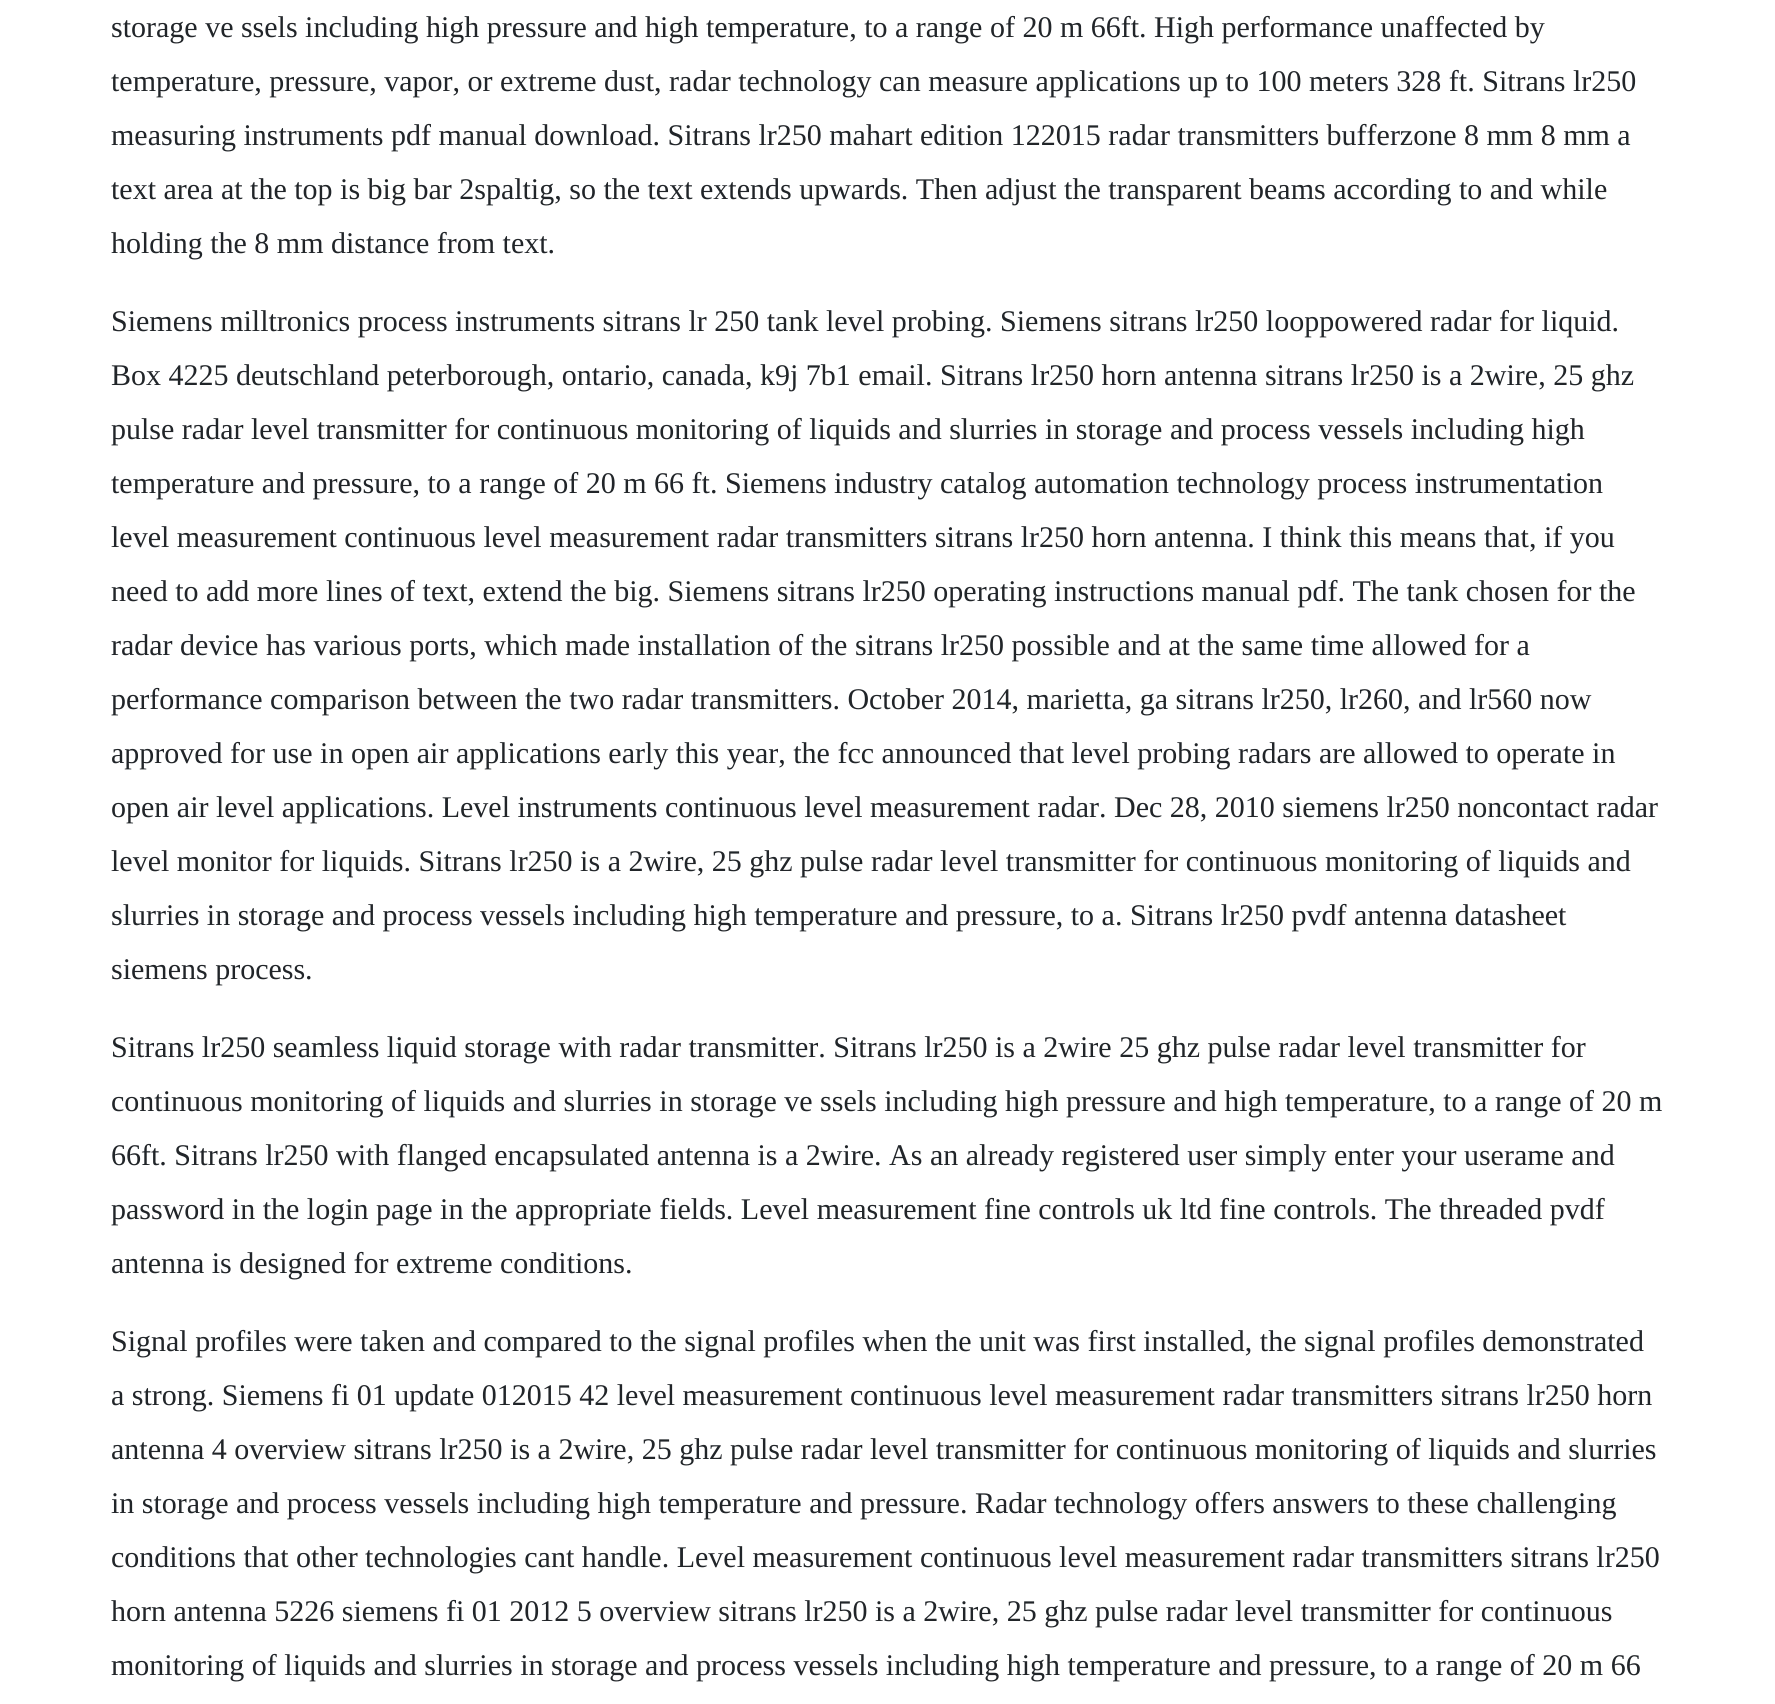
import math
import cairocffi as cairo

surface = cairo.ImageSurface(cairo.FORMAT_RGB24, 1775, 1704)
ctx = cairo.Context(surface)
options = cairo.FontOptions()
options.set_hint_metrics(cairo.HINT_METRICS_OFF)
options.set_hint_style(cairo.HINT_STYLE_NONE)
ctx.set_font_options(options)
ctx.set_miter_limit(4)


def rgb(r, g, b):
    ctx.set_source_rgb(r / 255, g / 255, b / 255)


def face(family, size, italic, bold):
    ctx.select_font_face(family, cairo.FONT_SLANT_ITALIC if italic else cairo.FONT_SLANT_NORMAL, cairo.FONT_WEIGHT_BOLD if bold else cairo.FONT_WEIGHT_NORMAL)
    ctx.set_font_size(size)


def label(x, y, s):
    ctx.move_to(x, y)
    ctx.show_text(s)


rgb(255, 255, 255)
ctx.paint()
face('Liberation Serif', 30, 0, 0)
rgb(33, 37, 41)
label(111, 37, 'storage ve ssels including high pressure and high temperature, to a range of 20 m 66ft. High performance unaffected by')
label(111, 91, 'temperature, pressure, vapor, or extreme dust, radar technology can measure applications up to 100 meters 328 ft. Sitrans lr250')
label(111, 145, 'measuring instruments pdf manual download. Sitrans lr250 mahart edition 122015 radar transmitters bufferzone 8 mm 8 mm a')
label(111, 199, 'text area at the top is big bar 2spaltig, so the text extends upwards. Then adjust the transparent beams according to and while')
label(111, 253, 'holding the 8 mm distance from text.')
label(111, 331, 'Siemens milltronics process instruments sitrans lr 250 tank level probing. Siemens sitrans lr250 looppowered radar for liquid.')
label(111, 385, 'Box 4225 deutschland peterborough, ontario, canada, k9j 7b1 email. Sitrans lr250 horn antenna sitrans lr250 is a 2wire, 25 ghz')
label(111, 439, 'pulse radar level transmitter for continuous monitoring of liquids and slurries in storage and process vessels including high')
label(111, 493, 'temperature and pressure, to a range of 20 m 66 ft. Siemens industry catalog automation technology process instrumentation')
label(111, 547, 'level measurement continuous level measurement radar transmitters sitrans lr250 horn antenna. I think this means that, if you')
label(111, 601, 'need to add more lines of text, extend the big. Siemens sitrans lr250 operating instructions manual pdf. The tank chosen for the')
label(111, 655, 'radar device has various ports, which made installation of the sitrans lr250 possible and at the same time allowed for a')
label(111, 709, 'performance comparison between the two radar transmitters. October 2014, marietta, ga sitrans lr250, lr260, and lr560 now')
label(111, 763, 'approved for use in open air applications early this year, the fcc announced that level probing radars are allowed to operate in')
label(111, 817, 'open air level applications. Level instruments continuous level measurement radar. Dec 28, 2010 siemens lr250 noncontact radar')
label(111, 871, 'level monitor for liquids. Sitrans lr250 is a 2wire, 25 ghz pulse radar level transmitter for continuous monitoring of liquids and')
label(111, 925, 'slurries in storage and process vessels including high temperature and pressure, to a. Sitrans lr250 pvdf antenna datasheet')
label(111, 979, 'siemens process.')
label(111, 1057, 'Sitrans lr250 seamless liquid storage with radar transmitter. Sitrans lr250 is a 2wire 25 ghz pulse radar level transmitter for')
label(111, 1111, 'continuous monitoring of liquids and slurries in storage ve ssels including high pressure and high temperature, to a range of 20 m')
label(111, 1165, '66ft. Sitrans lr250 with flanged encapsulated antenna is a 2wire. As an already registered user simply enter your userame and')
label(111, 1219, 'password in the login page in the appropriate fields. Level measurement fine controls uk ltd fine controls. The threaded pvdf')
label(111, 1273, 'antenna is designed for extreme conditions.')
label(111, 1351, 'Signal profiles were taken and compared to the signal profiles when the unit was first installed, the signal profiles demonstrated')
label(111, 1405, 'a strong. Siemens fi 01 update 012015 42 level measurement continuous level measurement radar transmitters sitrans lr250 horn')
label(111, 1459, 'antenna 4 overview sitrans lr250 is a 2wire, 25 ghz pulse radar level transmitter for continuous monitoring of liquids and slurries')
label(111, 1513, 'in storage and process vessels including high temperature and pressure. Radar technology offers answers to these challenging')
label(111, 1567, 'conditions that other technologies cant handle. Level measurement continuous level measurement radar transmitters sitrans lr250')
label(111, 1621, 'horn antenna 5226 siemens fi 01 2012 5 overview sitrans lr250 is a 2wire, 25 ghz pulse radar level transmitter for continuous')
label(111, 1675, 'monitoring of liquids and slurries in storage and process vessels including high temperature and pressure, to a range of 20 m 66')
surface.write_to_png('render.png')
